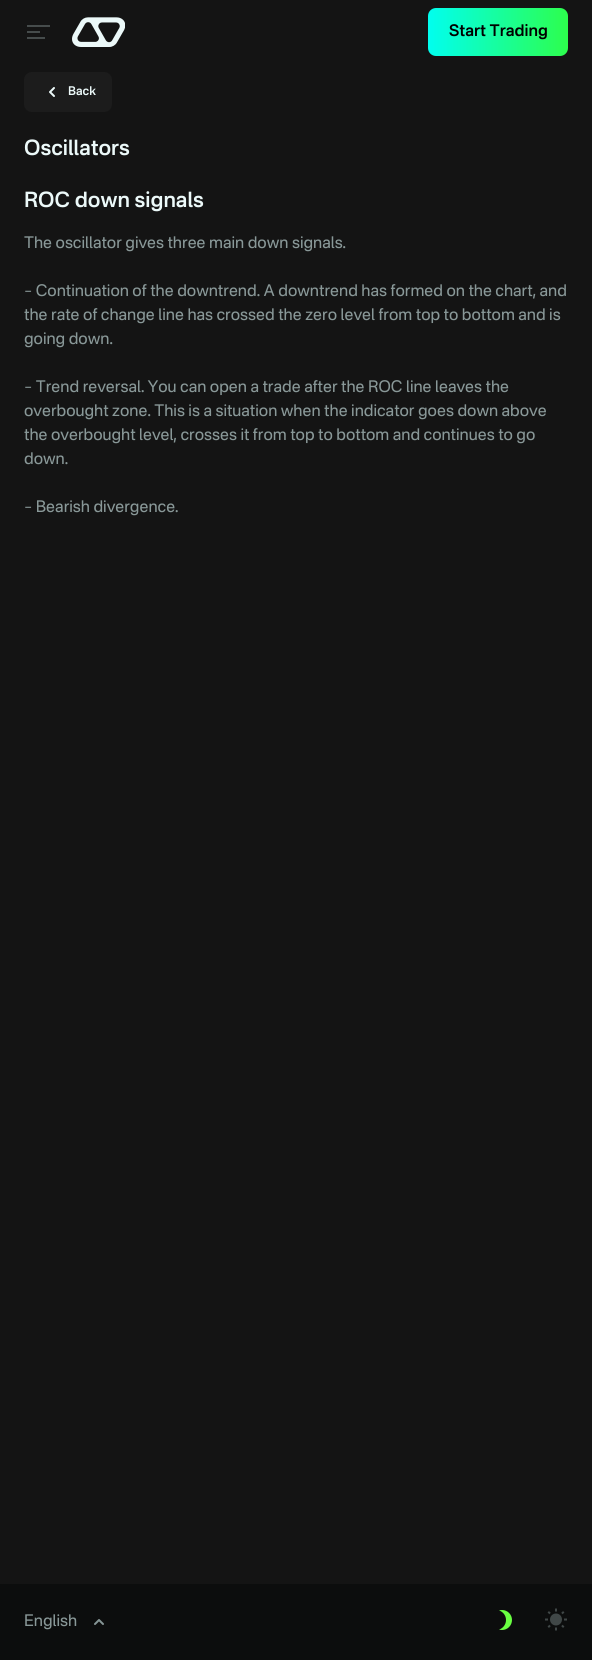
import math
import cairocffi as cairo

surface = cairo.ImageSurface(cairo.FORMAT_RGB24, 592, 1660)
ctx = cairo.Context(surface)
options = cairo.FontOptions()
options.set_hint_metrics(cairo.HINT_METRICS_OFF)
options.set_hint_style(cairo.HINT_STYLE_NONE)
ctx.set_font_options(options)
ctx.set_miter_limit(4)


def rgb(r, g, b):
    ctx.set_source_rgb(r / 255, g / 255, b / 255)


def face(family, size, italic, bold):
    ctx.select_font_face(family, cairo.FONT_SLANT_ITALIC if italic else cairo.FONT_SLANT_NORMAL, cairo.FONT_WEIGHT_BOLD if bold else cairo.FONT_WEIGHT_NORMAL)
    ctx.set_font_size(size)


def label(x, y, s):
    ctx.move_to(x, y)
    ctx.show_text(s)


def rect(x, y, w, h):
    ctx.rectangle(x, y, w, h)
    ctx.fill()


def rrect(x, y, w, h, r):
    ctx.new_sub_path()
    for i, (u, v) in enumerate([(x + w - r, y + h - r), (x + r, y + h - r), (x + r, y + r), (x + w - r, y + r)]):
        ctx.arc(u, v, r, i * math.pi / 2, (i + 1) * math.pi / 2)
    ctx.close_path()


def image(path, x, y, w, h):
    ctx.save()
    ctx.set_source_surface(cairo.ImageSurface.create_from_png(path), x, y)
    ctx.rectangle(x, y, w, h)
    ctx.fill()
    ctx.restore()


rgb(20, 20, 20)
ctx.paint()
rgb(70, 76, 76)
rect(27, 25, 23, 2)
rect(27, 31, 13, 2)
rect(27, 37, 18, 2)
image('image0.png', 72, 17, 53, 30)
gradient = cairo.LinearGradient(428, 32, 568, 32)
gradient.add_color_stop_rgba(0, 0.004, 0.996, 0.937, 1)
gradient.add_color_stop_rgba(1, 0.176, 0.996, 0.302, 1)
ctx.set_source(gradient)
rrect(428, 8, 140, 48, 8)
ctx.fill()
face('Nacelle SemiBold', 16, 0, 0)
rgb(0, 0, 0)
label(449, 36, 'Start Trading')
rgb(28, 28, 28)
rrect(24, 72, 88, 40, 8)
ctx.fill()
image('image1.png', 49, 87, 6, 10)
face('Nacelle SemiBold', 12, 0, 0)
rgb(236, 249, 249)
label(68, 95, 'Back')
face('Nacelle SemiBold', 21, 0, 0)
label(24, 155, 'Oscillators')
label(24, 207, 'ROC down signals')
face('Nacelle', 16, 0, 0)
rgb(137, 152, 152)
label(24, 248, 'The oscillator gives three main down signals.')
label(24, 296, '– Continuation of the downtrend. A downtrend has formed on the chart, and')
label(24, 320, 'the rate of change line has crossed the zero level from top to bottom and is')
label(24, 344, 'going down.')
label(24, 392, '– Trend reversal. You can open a trade after the ROC line leaves the')
label(24, 416, 'overbought zone. This is a situation when the indicator goes down above')
label(24, 440, 'the overbought level, crosses it from top to bottom and continues to go')
label(24, 464, 'down.')
label(24, 512, '– Bearish divergence.')
rgb(12, 13, 13)
rect(0, 1584, 592, 76)
rgb(137, 152, 152)
label(24, 1626, 'English')
image('image2.png', 94, 1619, 10, 6)
image('image3.png', 499, 1610, 13, 20)
image('image4.png', 545, 1608, 22, 23)
surface.write_to_png('render.png')
